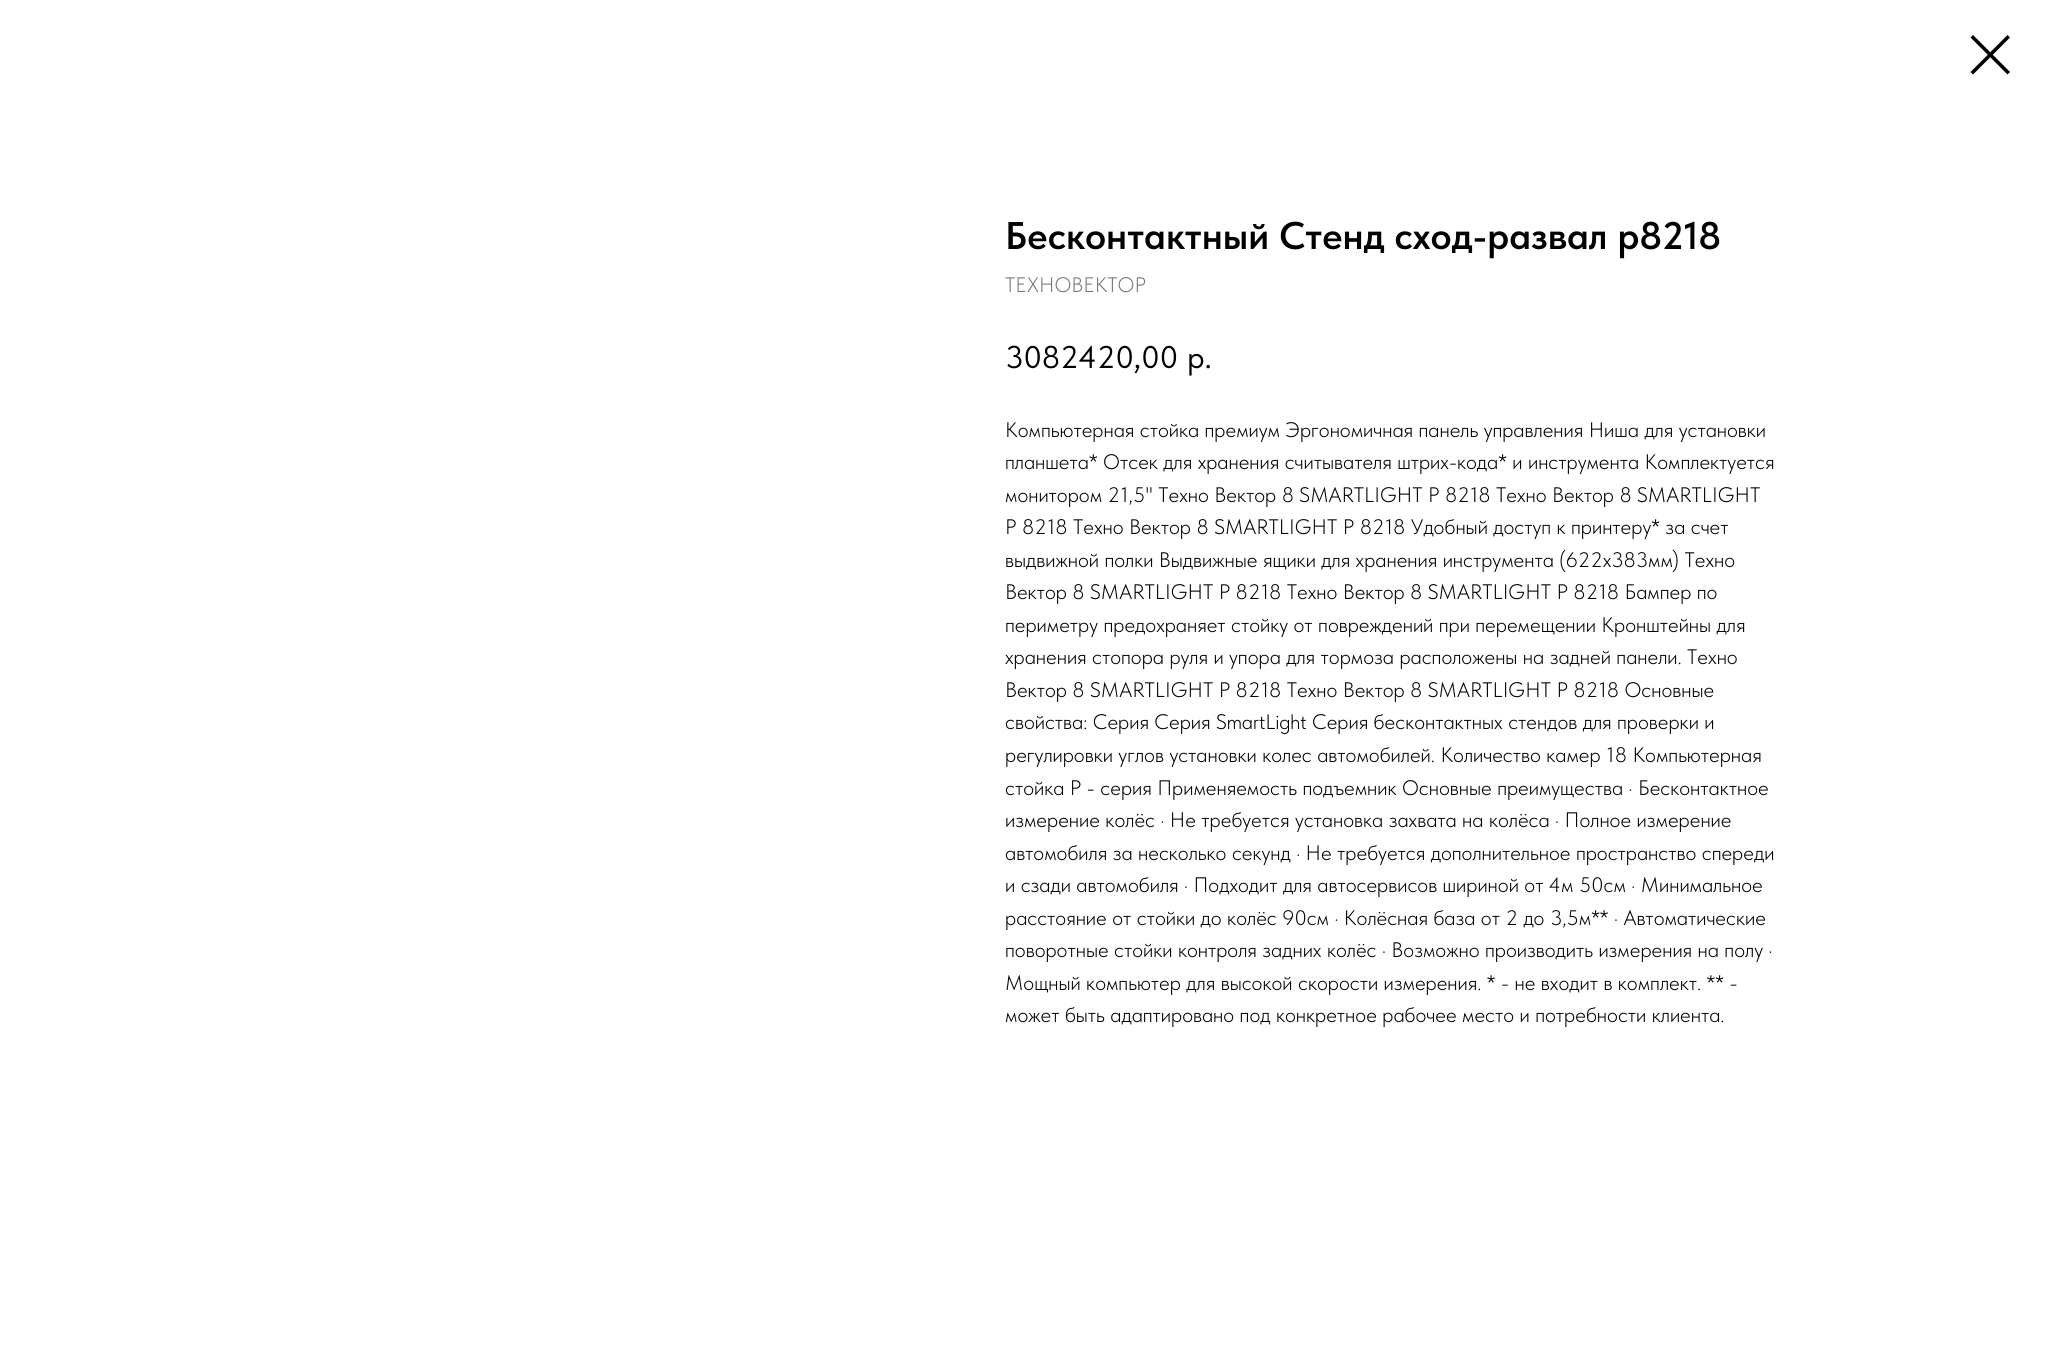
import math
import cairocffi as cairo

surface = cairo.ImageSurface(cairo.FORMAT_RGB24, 2045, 1353)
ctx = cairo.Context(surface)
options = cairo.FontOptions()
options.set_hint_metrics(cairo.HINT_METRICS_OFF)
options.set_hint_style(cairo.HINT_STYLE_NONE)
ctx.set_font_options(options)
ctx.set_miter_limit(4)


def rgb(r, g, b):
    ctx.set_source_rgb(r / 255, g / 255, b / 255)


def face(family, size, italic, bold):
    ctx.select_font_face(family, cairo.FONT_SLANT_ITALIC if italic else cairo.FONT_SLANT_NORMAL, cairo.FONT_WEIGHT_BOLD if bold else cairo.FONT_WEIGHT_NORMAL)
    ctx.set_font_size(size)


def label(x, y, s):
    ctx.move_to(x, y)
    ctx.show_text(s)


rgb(255, 255, 255)
ctx.paint()
rgb(0, 0, 0)
ctx.set_fill_rule(cairo.FILL_RULE_EVEN_ODD)
ctx.new_path()
ctx.move_to(1970.5, 37.5)
ctx.line_to(1973, 35)
ctx.line_to(2010, 72)
ctx.line_to(2007.5, 74.5)
ctx.close_path()
ctx.fill()
ctx.new_path()
ctx.move_to(2007.5, 35)
ctx.line_to(2010, 37.5)
ctx.line_to(1973, 74.5)
ctx.line_to(1970.5, 72)
ctx.close_path()
ctx.fill()
face('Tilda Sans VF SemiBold', 38.5, 0, 0)
label(1005, 249, 'Бесконтактный Стенд сход-развал p8218')
face('Tilda Sans VF Light', 21, 0, 0)
rgb(119, 119, 119)
label(1005, 292, 'ТЕХНОВЕКТОР')
face('Tilda Sans VF', 31.5, 0, 0)
rgb(0, 0, 0)
label(1005, 368, '3082420,00')
label(1187, 368, 'р.')
face('Tilda Sans VF Light', 21, 0, 0)
label(1005, 437, 'Компьютерная стойка премиум Эргономичная панель управления Ниша для установки')
label(1005, 469, 'планшета* Отсек для хранения считывателя штрих-кода* и инструмента Комплектуется')
label(1005, 502, 'монитором 21,5" Техно Вектор 8 SMARTLIGHT P 8218 Техно Вектор 8 SMARTLIGHT')
label(1005, 534, 'P 8218 Техно Вектор 8 SMARTLIGHT P 8218 Удобный доступ к принтеру* за счет')
label(1005, 567, 'выдвижной полки Выдвижные ящики для хранения инструмента (622х383мм) Техно')
label(1005, 599, 'Вектор 8 SMARTLIGHT P 8218 Техно Вектор 8 SMARTLIGHT P 8218 Бампер по')
label(1005, 632, 'периметру предохраняет стойку от повреждений при перемещении Кронштейны для')
label(1005, 664, 'хранения стопора руля и упора для тормоза расположены на задней панели. Техно')
label(1005, 697, 'Вектор 8 SMARTLIGHT P 8218 Техно Вектор 8 SMARTLIGHT P 8218 Основные')
label(1005, 729, 'свойства: Серия Серия SmartLight Серия бесконтактных стендов для проверки и')
label(1005, 762, 'регулировки углов установки колес автомобилей. Количество камер 18 Компьютерная')
label(1005, 795, 'стойка P - серия Применяемость подъемник Основные преимущества · Бесконтактное')
label(1005, 827, 'измерение колёс · Не требуется установка захвата на колёса · Полное измерение')
label(1005, 860, 'автомобиля за несколько секунд · Не требуется дополнительное пространство спереди')
label(1005, 892, 'и сзади автомобиля · Подходит для автосервисов шириной от 4м 50см · Минимальное')
label(1005, 925, 'расстояние от стойки до колёс 90см · Колёсная база от 2 до 3,5м** · Автоматические')
label(1005, 957, 'поворотные стойки контроля задних колёс · Возможно производить измерения на полу ·')
label(1005, 990, 'Мощный компьютер для высокой скорости измерения. * - не входит в комплект. ** -')
label(1005, 1022, 'может быть адаптировано под конкретное рабочее место и потребности клиента.')
surface.write_to_png('render.png')
